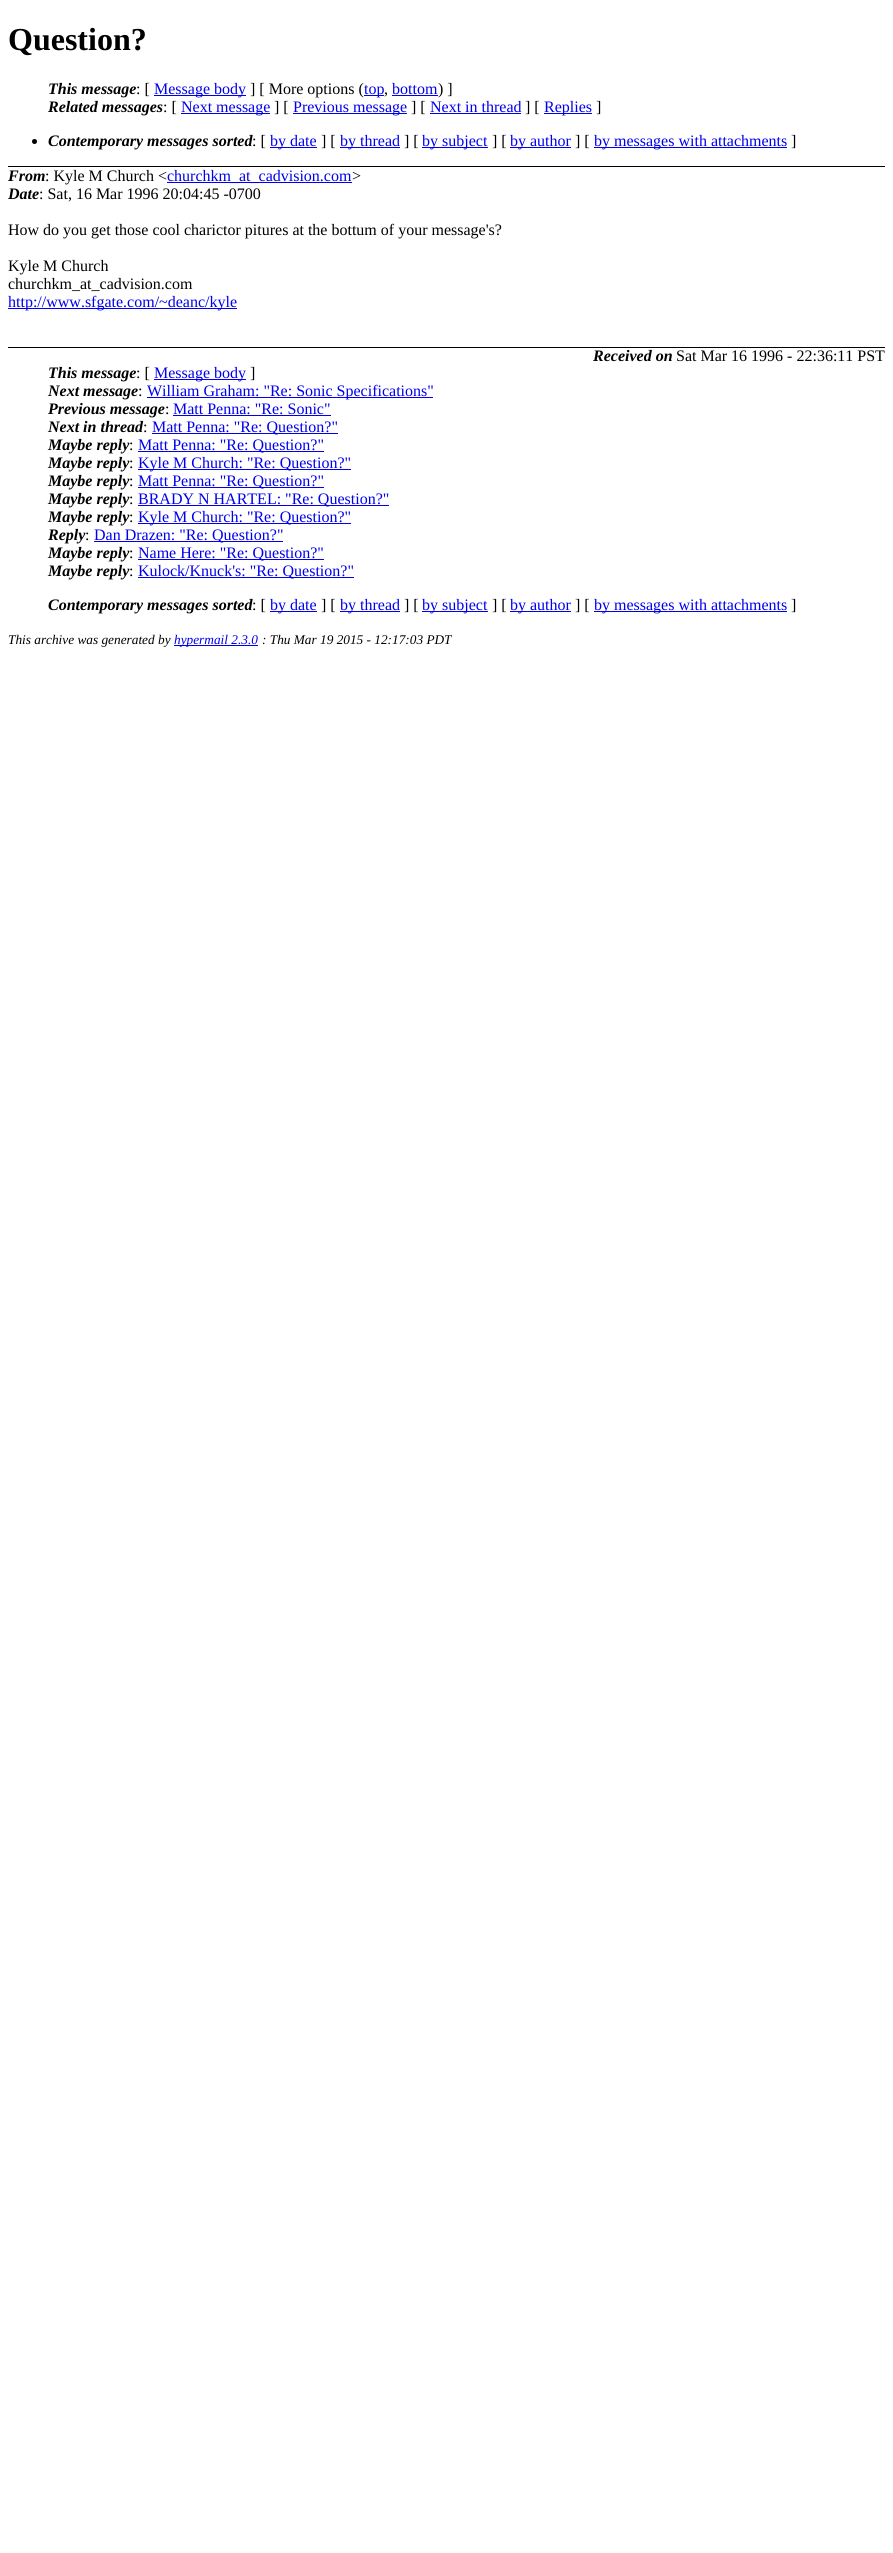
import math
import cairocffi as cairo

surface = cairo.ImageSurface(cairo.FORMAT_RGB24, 893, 2553)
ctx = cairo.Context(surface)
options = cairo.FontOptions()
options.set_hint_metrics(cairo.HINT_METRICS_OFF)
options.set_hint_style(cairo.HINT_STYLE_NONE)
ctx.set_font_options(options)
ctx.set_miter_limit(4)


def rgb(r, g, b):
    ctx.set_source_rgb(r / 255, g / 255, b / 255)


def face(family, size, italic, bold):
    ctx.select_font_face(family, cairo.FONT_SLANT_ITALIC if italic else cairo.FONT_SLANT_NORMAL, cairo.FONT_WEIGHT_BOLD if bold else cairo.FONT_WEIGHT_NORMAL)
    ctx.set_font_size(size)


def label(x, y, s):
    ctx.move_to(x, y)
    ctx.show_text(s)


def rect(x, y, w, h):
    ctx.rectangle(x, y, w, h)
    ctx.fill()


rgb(255, 255, 255)
ctx.paint()
rgb(0, 0, 0)
rect(8, 166, 877, 1)
face('Liberation Serif', 32, 0, 1)
label(8, 50, 'Question?')
face('Liberation Serif', 16, 1, 1)
label(48, 94, 'This message')
face('Liberation Serif', 16, 0, 0)
label(136, 94, ': [')
rgb(0, 0, 238)
rect(154, 95, 92, 1)
label(154, 94, 'Message body')
rgb(0, 0, 0)
label(250, 94, '] [ More options (')
rgb(0, 0, 238)
rect(364, 95, 20, 1)
label(364, 94, 'top')
rgb(0, 0, 0)
label(384, 94, ',')
rgb(0, 0, 238)
label(392, 94, 'bottom')
rect(392, 95, 46, 1)
rgb(0, 0, 0)
label(438, 94, ') ]')
face('Liberation Serif', 16, 1, 1)
label(48, 112, 'Related messages')
face('Liberation Serif', 16, 0, 0)
label(163, 112, ': [')
rgb(0, 0, 238)
rect(181, 113, 89, 1)
label(181, 112, 'Next message')
rgb(0, 0, 0)
label(274, 112, '] [')
rgb(0, 0, 238)
rect(293, 113, 114, 1)
label(293, 112, 'Previous message')
rgb(0, 0, 0)
label(411, 112, '] [')
rgb(0, 0, 238)
label(430, 112, 'Next in thread')
rect(430, 113, 91, 1)
rgb(0, 0, 0)
label(525, 112, '] [')
rgb(0, 0, 238)
rect(544, 113, 48, 1)
label(544, 112, 'Replies')
rgb(0, 0, 0)
label(596, 112, ']')
ctx.new_path()
ctx.arc(34.5, 141.5, 2.5, 0, 2 * math.pi)
ctx.fill()
face('Liberation Serif', 16, 1, 1)
label(48, 146, 'Contemporary messages sorted')
face('Liberation Serif', 16, 0, 0)
label(252, 146, ': [')
rgb(0, 0, 238)
rect(270, 147, 47, 1)
label(270, 146, 'by date')
rgb(0, 0, 0)
label(321, 146, '] [')
rgb(0, 0, 238)
rect(340, 147, 60, 1)
label(340, 146, 'by thread')
rgb(0, 0, 0)
label(404, 146, '] [')
rgb(0, 0, 238)
rect(422, 147, 66, 1)
label(422, 146, 'by subject')
rgb(0, 0, 0)
label(492, 146, '] [')
rgb(0, 0, 238)
rect(510, 147, 61, 1)
label(510, 146, 'by author')
rgb(0, 0, 0)
label(575, 146, '] [')
rgb(0, 0, 238)
rect(594, 147, 193, 1)
label(594, 146, 'by messages with attachments')
rgb(0, 0, 0)
label(791, 146, ']')
face('Liberation Serif', 16, 1, 1)
label(8, 181, 'From')
face('Liberation Serif', 16, 0, 0)
label(45, 181, ': Kyle M Church <')
rgb(0, 0, 238)
rect(167, 182, 185, 1)
label(167, 181, 'churchkm_at_cadvision.com')
rgb(0, 0, 0)
label(352, 181, '>')
face('Liberation Serif', 16, 1, 1)
label(8, 199, 'Date')
face('Liberation Serif', 16, 0, 0)
label(39, 199, ': Sat, 16 Mar 1996 20:04:45 -0700')
label(8, 235, 'How do you get those cool charictor pitures at the bottum of your message\'s?')
label(8, 271, 'Kyle M Church')
label(8, 289, 'churchkm_at_cadvision.com')
rgb(0, 0, 238)
rect(8, 308, 229, 1)
label(8, 307, 'http://www.sfgate.com/~deanc/kyle')
face('Liberation Serif', 16, 1, 1)
rgb(0, 0, 0)
label(593, 361, 'Received on')
face('Liberation Serif', 16, 0, 0)
label(676, 361, 'Sat Mar 16 1996 - 22:36:11 PST')
rect(8, 347, 877, 1)
face('Liberation Serif', 16, 1, 1)
label(48, 378, 'This message')
face('Liberation Serif', 16, 0, 0)
label(136, 378, ': [')
rgb(0, 0, 238)
rect(154, 379, 92, 1)
label(154, 378, 'Message body')
rgb(0, 0, 0)
label(250, 378, ']')
face('Liberation Serif', 16, 1, 1)
label(48, 396, 'Next message')
face('Liberation Serif', 16, 0, 0)
label(138, 396, ':')
rgb(0, 0, 238)
rect(147, 397, 286, 1)
label(147, 396, 'William Graham: "Re: Sonic Specifications"')
face('Liberation Serif', 16, 1, 1)
rgb(0, 0, 0)
label(48, 414, 'Previous message')
face('Liberation Serif', 16, 0, 0)
label(165, 414, ':')
rgb(0, 0, 238)
label(173, 414, 'Matt Penna: "Re: Sonic"')
rect(173, 415, 158, 1)
face('Liberation Serif', 16, 1, 1)
rgb(0, 0, 0)
label(48, 432, 'Next in thread')
face('Liberation Serif', 16, 0, 0)
label(143, 432, ':')
rgb(0, 0, 238)
rect(152, 433, 186, 1)
label(152, 432, 'Matt Penna: "Re: Question?"')
face('Liberation Serif', 16, 1, 1)
rgb(0, 0, 0)
label(48, 450, 'Maybe reply')
face('Liberation Serif', 16, 0, 0)
label(129, 450, ':')
rgb(0, 0, 238)
rect(138, 451, 186, 1)
label(138, 450, 'Matt Penna: "Re: Question?"')
face('Liberation Serif', 16, 1, 1)
rgb(0, 0, 0)
label(48, 468, 'Maybe reply')
face('Liberation Serif', 16, 0, 0)
label(129, 468, ':')
rgb(0, 0, 238)
rect(138, 469, 213, 1)
label(138, 468, 'Kyle M Church: "Re: Question?"')
face('Liberation Serif', 16, 1, 1)
rgb(0, 0, 0)
label(48, 486, 'Maybe reply')
face('Liberation Serif', 16, 0, 0)
label(129, 486, ':')
rgb(0, 0, 238)
rect(138, 487, 186, 1)
label(138, 486, 'Matt Penna: "Re: Question?"')
face('Liberation Serif', 16, 1, 1)
rgb(0, 0, 0)
label(48, 504, 'Maybe reply')
face('Liberation Serif', 16, 0, 0)
label(129, 504, ':')
rgb(0, 0, 238)
rect(138, 505, 251, 1)
label(138, 504, 'BRADY N HARTEL: "Re: Question?"')
face('Liberation Serif', 16, 1, 1)
rgb(0, 0, 0)
label(48, 522, 'Maybe reply')
face('Liberation Serif', 16, 0, 0)
label(129, 522, ':')
rgb(0, 0, 238)
rect(138, 523, 213, 1)
label(138, 522, 'Kyle M Church: "Re: Question?"')
face('Liberation Serif', 16, 1, 1)
rgb(0, 0, 0)
label(48, 540, 'Reply')
face('Liberation Serif', 16, 0, 0)
label(85, 540, ':')
rgb(0, 0, 238)
rect(94, 541, 189, 1)
label(94, 540, 'Dan Drazen: "Re: Question?"')
face('Liberation Serif', 16, 1, 1)
rgb(0, 0, 0)
label(48, 558, 'Maybe reply')
face('Liberation Serif', 16, 0, 0)
label(129, 558, ':')
rgb(0, 0, 238)
rect(138, 559, 186, 1)
label(138, 558, 'Name Here: "Re: Question?"')
face('Liberation Serif', 16, 1, 1)
rgb(0, 0, 0)
label(48, 576, 'Maybe reply')
face('Liberation Serif', 16, 0, 0)
label(129, 576, ':')
rgb(0, 0, 238)
rect(138, 577, 216, 1)
label(138, 576, 'Kulock/Knuck\'s: "Re: Question?"')
face('Liberation Serif', 16, 1, 1)
rgb(0, 0, 0)
label(48, 610, 'Contemporary messages sorted')
face('Liberation Serif', 16, 0, 0)
label(252, 610, ': [')
rgb(0, 0, 238)
rect(270, 611, 47, 1)
label(270, 610, 'by date')
rgb(0, 0, 0)
label(321, 610, '] [')
rgb(0, 0, 238)
rect(340, 611, 60, 1)
label(340, 610, 'by thread')
rgb(0, 0, 0)
label(404, 610, '] [')
rgb(0, 0, 238)
rect(422, 611, 66, 1)
label(422, 610, 'by subject')
rgb(0, 0, 0)
label(492, 610, '] [')
rgb(0, 0, 238)
rect(510, 611, 61, 1)
label(510, 610, 'by author')
rgb(0, 0, 0)
label(575, 610, '] [')
rgb(0, 0, 238)
rect(594, 611, 193, 1)
label(594, 610, 'by messages with attachments')
rgb(0, 0, 0)
label(791, 610, ']')
face('Liberation Serif', 13.3, 1, 0)
label(8, 644, 'This archive was generated by')
rgb(0, 0, 238)
rect(174, 645, 84, 1)
label(174, 644, 'hypermail 2.3.0')
rgb(0, 0, 0)
label(262, 644, ': Thu Mar 19 2015 - 12:17:03 PDT')
surface.write_to_png('render.png')
